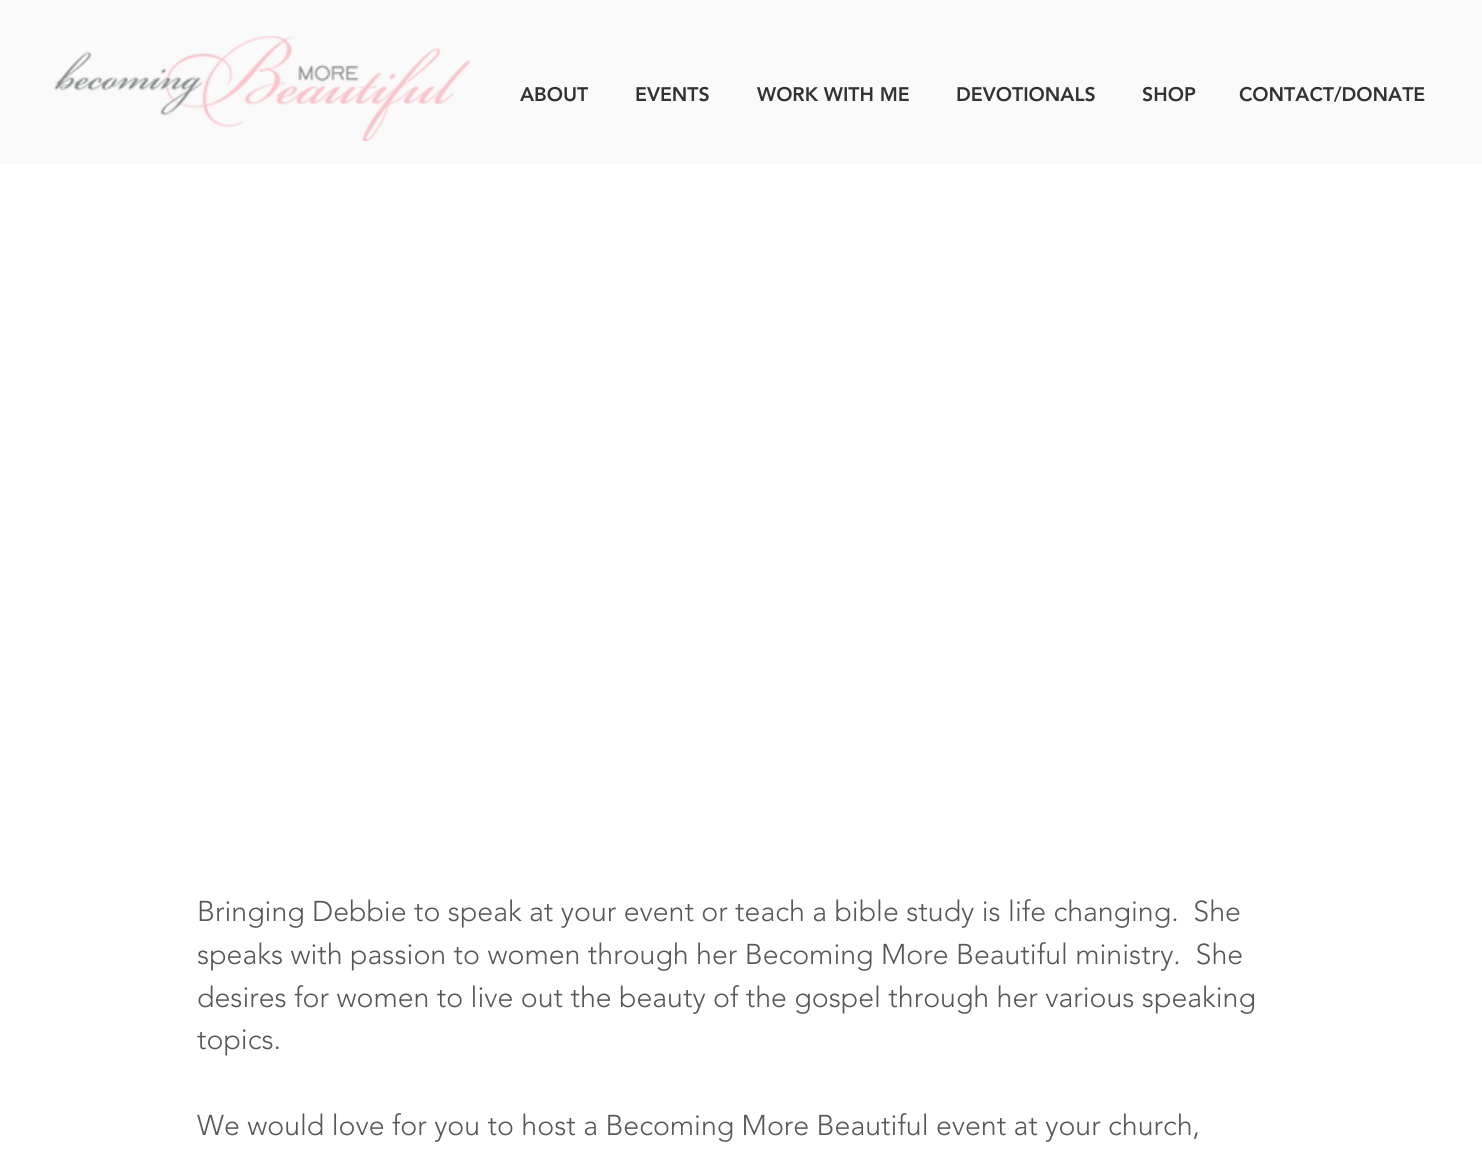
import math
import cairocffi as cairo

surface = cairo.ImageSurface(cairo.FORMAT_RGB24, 1482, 1163)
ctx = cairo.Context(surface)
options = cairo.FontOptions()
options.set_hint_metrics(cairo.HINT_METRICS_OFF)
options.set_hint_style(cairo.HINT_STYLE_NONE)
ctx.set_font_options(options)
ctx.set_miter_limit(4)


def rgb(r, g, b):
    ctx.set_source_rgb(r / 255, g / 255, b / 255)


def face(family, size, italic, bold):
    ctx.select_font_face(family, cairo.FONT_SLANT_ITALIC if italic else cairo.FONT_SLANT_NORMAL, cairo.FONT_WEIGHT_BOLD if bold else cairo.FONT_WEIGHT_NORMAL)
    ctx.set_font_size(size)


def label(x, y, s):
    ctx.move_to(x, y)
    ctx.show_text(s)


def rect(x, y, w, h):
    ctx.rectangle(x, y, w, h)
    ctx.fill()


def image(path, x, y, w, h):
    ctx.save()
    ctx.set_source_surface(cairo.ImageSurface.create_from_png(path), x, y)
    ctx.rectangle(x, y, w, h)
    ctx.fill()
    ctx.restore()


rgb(255, 255, 255)
ctx.paint()
rgb(250, 250, 250)
rect(0, 0, 1482, 164)
image('image0.png', 54, 36, 417, 105)
face('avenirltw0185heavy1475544 Black', 19.5, 0, 0)
rgb(50, 50, 50)
label(520, 101, 'ABOUT')
label(635, 101, 'EVENTS')
label(757, 101, 'WORK WITH ME')
label(956, 101, 'DEVOTIONALS')
label(1142, 101, 'SHOP')
label(1239, 101, 'CONTACT/DONATE')
face('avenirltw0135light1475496 Light', 28.5, 0, 0)
rgb(87, 87, 89)
label(197, 921, 'Bringing Debbie to speak at your event or teach a bible study is life changing.  She')
label(197, 964, 'speaks with passion to women through her Becoming More Beautiful ministry.  She')
label(197, 1007, 'desires for women to live out the beauty of the gospel through her various speaking')
label(197, 1049, 'topics.')
label(197, 1135, 'We would love for you to host a Becoming More Beautiful event at your church,')
surface.write_to_png('render.png')
